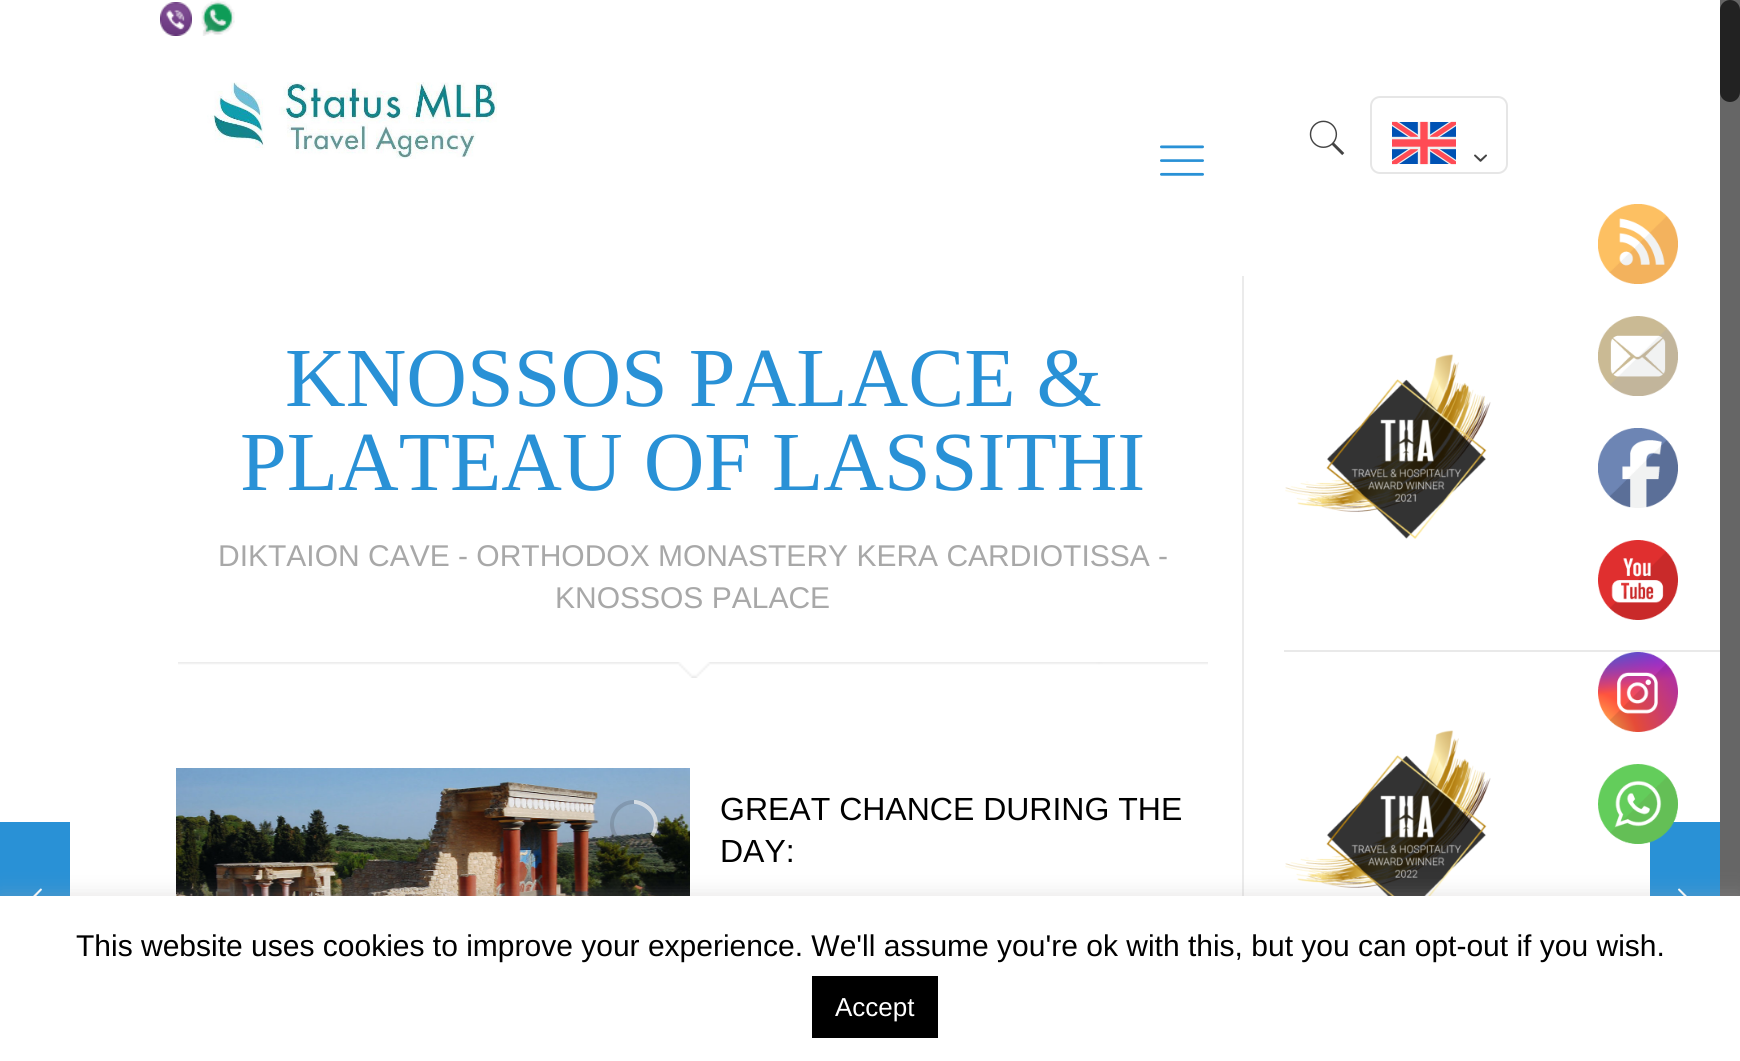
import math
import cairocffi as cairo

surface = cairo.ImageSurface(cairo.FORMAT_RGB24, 1740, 1061)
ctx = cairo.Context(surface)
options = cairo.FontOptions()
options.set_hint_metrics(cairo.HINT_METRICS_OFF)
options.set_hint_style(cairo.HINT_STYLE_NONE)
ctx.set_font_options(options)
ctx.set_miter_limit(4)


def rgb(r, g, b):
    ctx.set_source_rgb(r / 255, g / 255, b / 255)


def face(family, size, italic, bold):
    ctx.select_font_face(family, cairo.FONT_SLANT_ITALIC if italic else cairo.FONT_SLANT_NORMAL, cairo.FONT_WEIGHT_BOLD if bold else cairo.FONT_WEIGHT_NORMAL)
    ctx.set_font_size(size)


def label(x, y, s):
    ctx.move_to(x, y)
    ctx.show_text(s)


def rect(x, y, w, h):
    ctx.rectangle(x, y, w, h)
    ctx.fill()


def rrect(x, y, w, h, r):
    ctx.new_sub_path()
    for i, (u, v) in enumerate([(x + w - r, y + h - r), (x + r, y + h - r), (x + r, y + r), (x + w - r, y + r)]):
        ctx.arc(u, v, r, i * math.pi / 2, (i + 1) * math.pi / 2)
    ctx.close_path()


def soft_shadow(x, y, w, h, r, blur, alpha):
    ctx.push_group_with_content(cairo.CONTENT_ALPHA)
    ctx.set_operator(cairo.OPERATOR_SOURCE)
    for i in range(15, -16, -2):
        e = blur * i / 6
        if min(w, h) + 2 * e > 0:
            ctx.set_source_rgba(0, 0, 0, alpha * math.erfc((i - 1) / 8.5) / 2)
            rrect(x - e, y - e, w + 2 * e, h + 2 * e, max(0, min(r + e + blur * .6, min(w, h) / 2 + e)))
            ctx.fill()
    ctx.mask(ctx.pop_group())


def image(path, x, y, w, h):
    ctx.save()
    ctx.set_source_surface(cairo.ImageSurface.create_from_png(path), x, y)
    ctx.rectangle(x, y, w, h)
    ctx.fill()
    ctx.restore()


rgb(255, 255, 255)
ctx.paint()
rgb(41, 145, 214)
rect(0, 822, 70, 74)
image('image0.png', 33, 888, 9, 8)
image('image1.png', 160, 2, 32, 34)
image('image2.png', 201, 0, 34, 36)
image('image3.png', 207, 82, 290, 77)
image('image4.png', 1160, 145, 44, 31)
image('image5.png', 1309, 120, 36, 36)
rrect(1371, 97, 136, 76, 9)
rgb(230, 230, 230)
ctx.stroke()
image('image6.png', 1392, 121, 64, 44)
image('image7.png', 1474, 154, 13, 8)
image('image8.png', 178, 662, 1030, 16)
face('Liberation Serif', 84, 0, 0)
rgb(41, 145, 214)
label(285, 406, 'KNOSSOS PALACE &')
label(240, 490, 'PLATEAU OF LASSITHI')
face('Liberation Sans', 30, 0, 0)
rgb(168, 168, 168)
label(218, 566, 'DIKTAION CAVE - ORTHODOX MONASTERY KERA CARDIOTISSA -')
label(555, 608, 'KNOSSOS PALACE')
image('image9.png', 176, 768, 514, 128)
ctx.arc(634, 824, 22, 0, 2 * math.pi)
ctx.set_source_rgba(0, 0, 0, 0.13)
ctx.set_line_width(4)
ctx.stroke()
ctx.save()
ctx.rectangle(634, 800, 24, 48)
ctx.clip()
ctx.new_path()
ctx.move_to(667, 817)
ctx.line_to(654, 837)
ctx.line_to(613.5, 811)
ctx.line_to(627, 791)
ctx.close_path()
ctx.clip()
ctx.new_path()
ctx.move_to(652, 836)
ctx.curve_to(636, 860.5, 599.5, 836, 615.5, 812)
ctx.curve_to(631, 787.5, 668, 812, 652, 836)
ctx.close_path()
ctx.set_source_rgba(1, 1, 1, 0.65)
ctx.stroke()
ctx.restore()
face('Liberation Sans', 32, 0, 0)
rgb(0, 0, 0)
label(720, 820, 'GREAT CHANCE DURING THE')
label(720, 862, 'DAY:')
rgb(235, 235, 235)
rect(1242, 276, 2, 620)
image('image10.png', 1285, 354, 206, 185)
rgb(233, 233, 233)
rect(1284, 650, 436, 2)
image('image11.png', 1285, 730, 206, 166)
image('image12.png', 1598, 204, 80, 80)
image('image13.png', 1598, 316, 80, 80)
image('image14.png', 1598, 428, 80, 80)
image('image15.png', 1598, 540, 80, 80)
image('image16.png', 1598, 652, 80, 80)
rgb(41, 145, 214)
rect(1650, 822, 70, 74)
image('image17.png', 1598, 764, 80, 80)
image('image18.png', 1678, 888, 9, 8)
rgb(102, 102, 102)
rect(1720, 0, 20, 896)
rgb(34, 34, 34)
rrect(1720, 0, 20, 102, 10)
ctx.fill()
rgb(172, 171, 171)
soft_shadow(0, 894, 1740, 166, 0, 10, 0.3)
rgb(255, 255, 255)
rect(0, 896, 1740, 165)
face('Liberation Sans', 30, 0, 0)
rgb(0, 0, 0)
label(76, 956, 'This website uses cookies to improve your experience. We\'ll assume you\'re ok with this, but you can opt-out if you wish.')
rect(812, 976, 126, 62)
face('Liberation Sans', 26, 0, 0)
rgb(255, 255, 255)
label(835, 1016, 'Accept')
surface.write_to_png('render.png')
